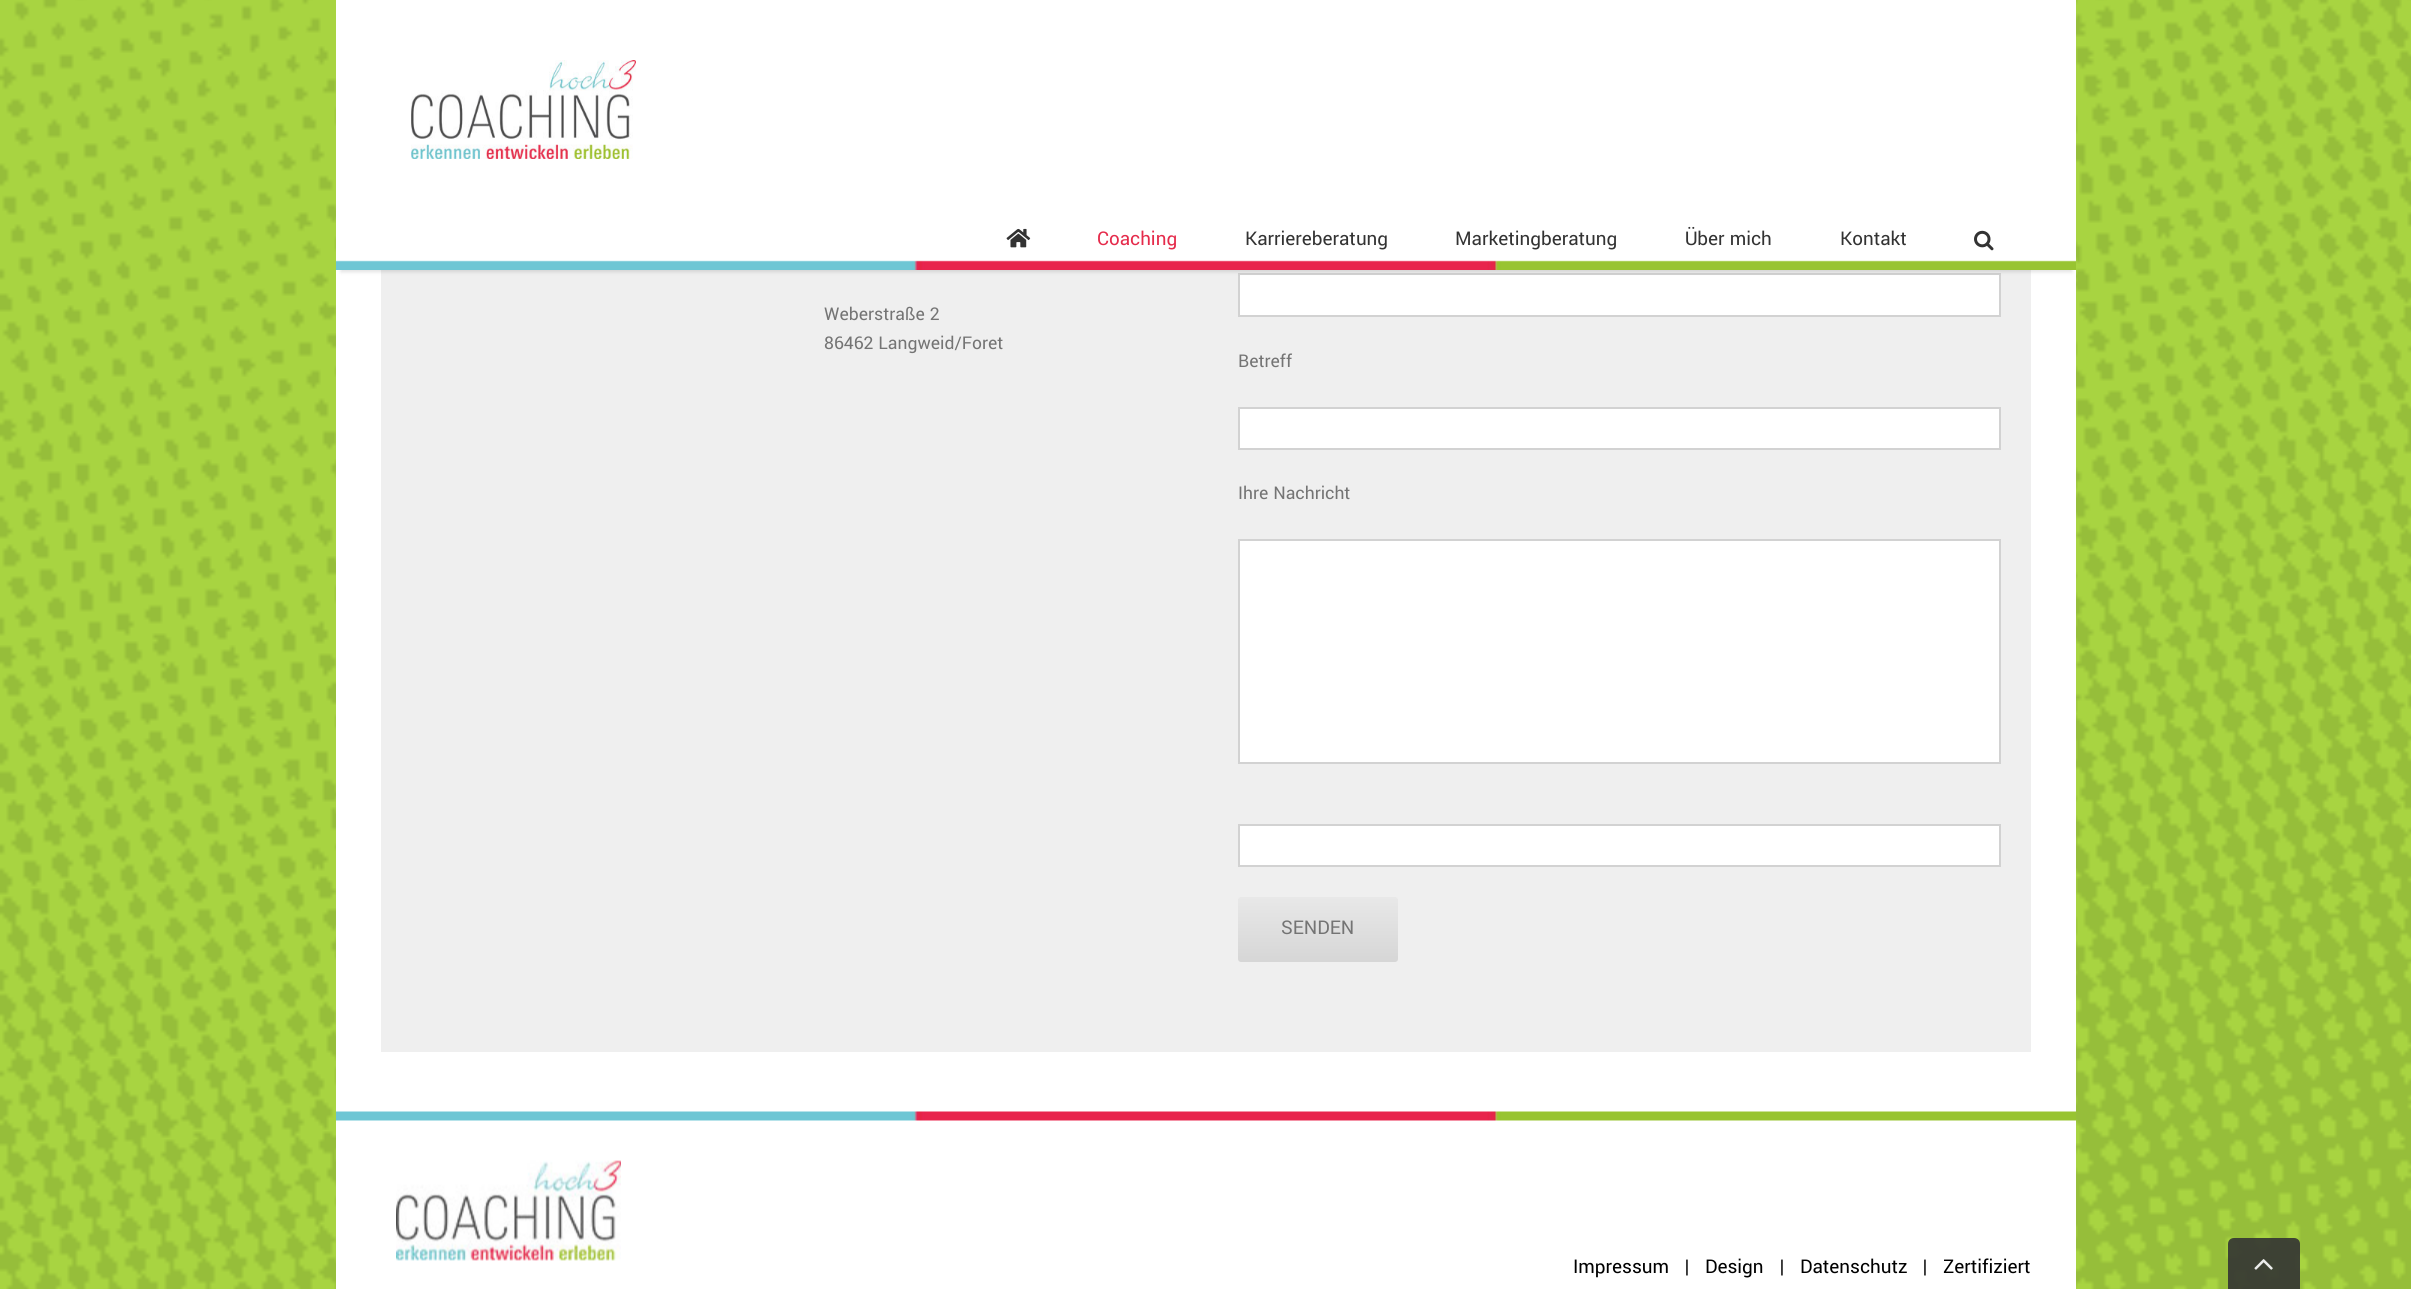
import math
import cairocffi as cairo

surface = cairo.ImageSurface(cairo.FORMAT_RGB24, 2411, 1289)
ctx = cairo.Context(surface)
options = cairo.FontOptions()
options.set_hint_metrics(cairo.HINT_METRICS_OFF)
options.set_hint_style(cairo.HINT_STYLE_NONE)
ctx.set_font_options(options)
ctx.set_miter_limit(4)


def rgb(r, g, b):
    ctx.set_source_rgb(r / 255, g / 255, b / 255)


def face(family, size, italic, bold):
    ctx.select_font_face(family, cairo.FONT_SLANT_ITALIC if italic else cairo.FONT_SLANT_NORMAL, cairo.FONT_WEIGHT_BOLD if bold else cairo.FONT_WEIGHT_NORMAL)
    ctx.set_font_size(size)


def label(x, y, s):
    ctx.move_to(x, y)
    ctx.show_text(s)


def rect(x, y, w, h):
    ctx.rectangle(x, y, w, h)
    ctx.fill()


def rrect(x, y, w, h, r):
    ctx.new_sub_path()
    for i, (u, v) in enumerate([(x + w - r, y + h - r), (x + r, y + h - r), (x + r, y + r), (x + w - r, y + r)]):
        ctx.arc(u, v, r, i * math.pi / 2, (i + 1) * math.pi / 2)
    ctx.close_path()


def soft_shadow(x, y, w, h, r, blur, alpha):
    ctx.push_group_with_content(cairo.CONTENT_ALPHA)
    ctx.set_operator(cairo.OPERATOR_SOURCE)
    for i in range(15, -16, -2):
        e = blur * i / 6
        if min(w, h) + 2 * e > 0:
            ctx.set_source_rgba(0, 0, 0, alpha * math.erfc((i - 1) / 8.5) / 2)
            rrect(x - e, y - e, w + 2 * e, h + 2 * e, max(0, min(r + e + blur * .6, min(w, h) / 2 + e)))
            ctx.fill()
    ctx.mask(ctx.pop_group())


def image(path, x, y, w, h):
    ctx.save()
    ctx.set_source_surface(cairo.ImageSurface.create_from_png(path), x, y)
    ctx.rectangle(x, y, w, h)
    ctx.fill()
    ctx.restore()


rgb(255, 255, 255)
ctx.paint()
image('image0.png', 0, 0, 2411, 1289)
rgb(255, 255, 255)
rect(336, 270, 1740, 842)
rgb(239, 239, 239)
rect(381, 270, 1650, 782)
rgb(255, 255, 255)
ctx.rectangle(1239, 274, 761, 42)
ctx.fill_preserve()
rgb(210, 210, 210)
ctx.stroke()
rgb(0, 0, 0)
soft_shadow(341, 11, 1731, 261, 0, 2, 0.12)
rgb(255, 255, 255)
rect(336, 0, 1740, 262)
image('image1.png', 411, 60, 225, 99)
image('image2.png', 336, 260, 1740, 10)
image('image3.png', 1006, 228, 25, 20)
face('Yantramanav', 21, 0, 0)
rgb(229, 43, 75)
label(1097, 245, 'Coaching')
rgb(51, 51, 51)
label(1245, 245, 'Karriereberatung')
label(1455, 245, 'Marketingberatung')
label(1685, 245, 'Über mich')
label(1840, 245, 'Kontakt')
image('image4.png', 1974, 230, 20, 21)
face('Yantramanav', 19.5, 0, 0)
rgb(116, 116, 116)
label(824, 320, 'Weberstraße 2')
label(824, 349, '86462 Langweid/Foret')
label(1238, 367, 'Betreff')
rgb(255, 255, 255)
ctx.rectangle(1239, 408, 761, 41)
ctx.fill_preserve()
rgb(210, 210, 210)
ctx.stroke()
rgb(116, 116, 116)
label(1238, 499, 'Ihre Nachricht')
rgb(255, 255, 255)
ctx.rectangle(1239, 540, 761, 223)
ctx.fill_preserve()
rgb(210, 210, 210)
ctx.stroke()
rgb(255, 255, 255)
ctx.rectangle(1239, 825, 761, 41)
ctx.fill_preserve()
rgb(210, 210, 210)
ctx.stroke()
gradient = cairo.LinearGradient(1318, 897, 1318, 962)
gradient.add_color_stop_rgba(0, 0.91, 0.91, 0.91, 1)
gradient.add_color_stop_rgba(1, 0.839, 0.839, 0.839, 1)
ctx.set_source(gradient)
rrect(1238, 897, 160, 65, 3)
ctx.fill()
face('Yantramanav', 21, 0, 0)
rgb(116, 116, 116)
label(1281, 934, 'SENDEN')
rgb(255, 255, 255)
rect(336, 1120, 1740, 169)
image('image5.png', 336, 1111, 1740, 10)
image('image6.png', 396, 1160, 225, 101)
rgb(0, 0, 0)
label(1573, 1273, 'Impressum')
label(1684, 1273, '|')
label(1705, 1273, 'Design')
label(1779, 1273, '|')
label(1800, 1273, 'Datenschutz')
label(1922, 1273, '|')
label(1943, 1273, 'Zertifiziert')
ctx.set_source_rgba(0.2, 0.2, 0.2, 0.9)
ctx.new_path()
ctx.move_to(2234, 1238)
ctx.line_to(2294, 1238)
ctx.curve_to(2297.5, 1238, 2300, 1240.5, 2300, 1244)
ctx.line_to(2300, 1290)
ctx.line_to(2228, 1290)
ctx.line_to(2228, 1244)
ctx.curve_to(2228, 1240.5, 2230.5, 1238, 2234, 1238)
ctx.close_path()
ctx.fill()
image('image7.png', 2254, 1259, 19, 11)
surface.write_to_png('render.png')
